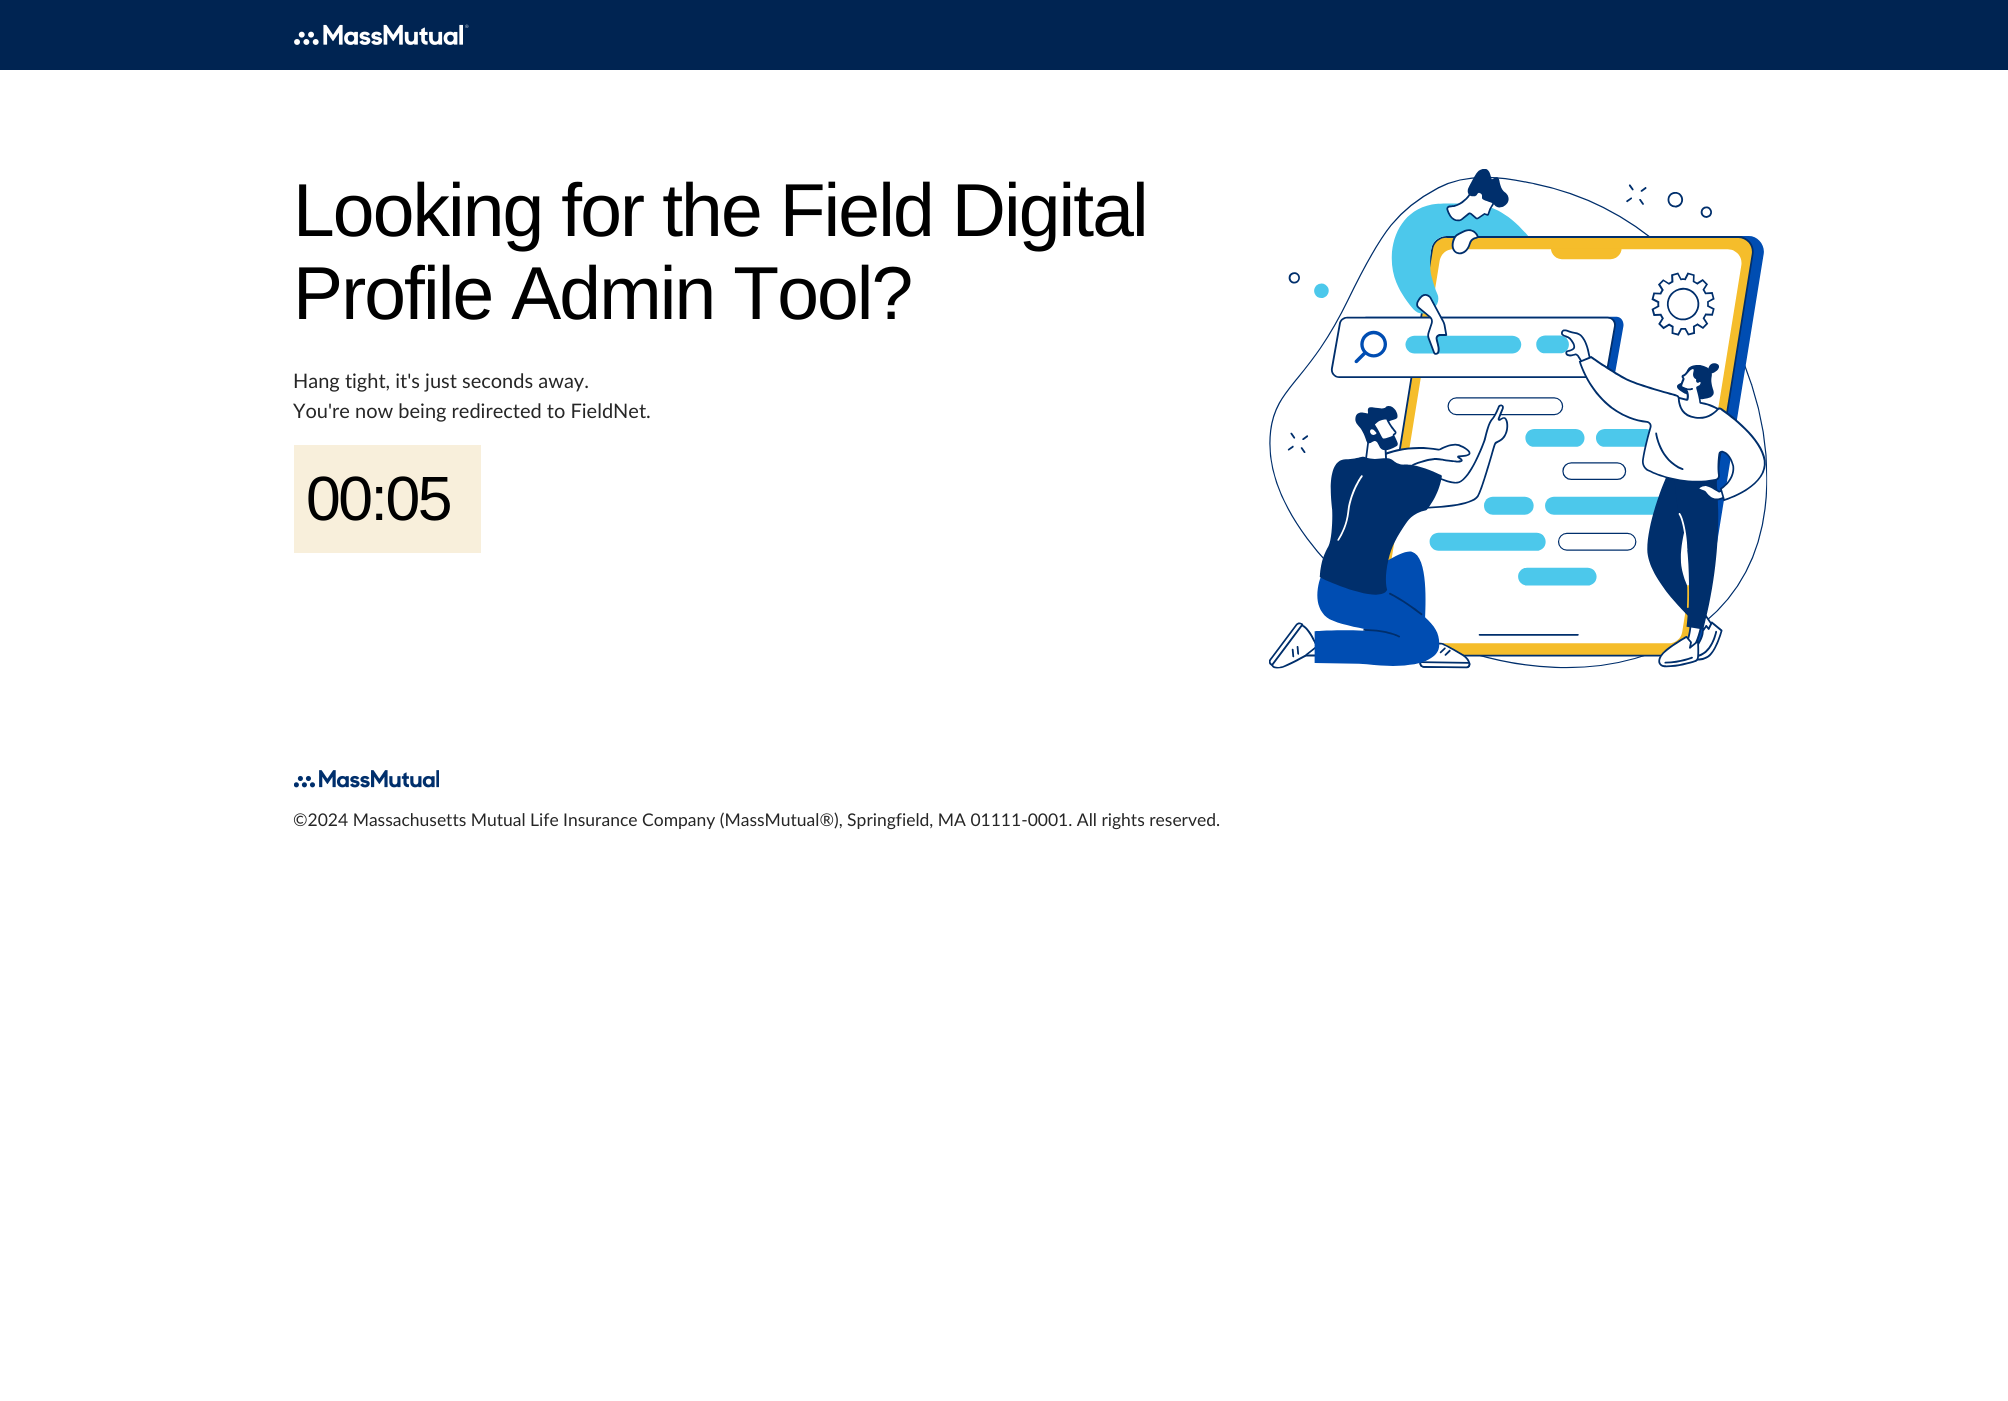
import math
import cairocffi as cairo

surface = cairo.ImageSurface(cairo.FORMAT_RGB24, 2008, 1401)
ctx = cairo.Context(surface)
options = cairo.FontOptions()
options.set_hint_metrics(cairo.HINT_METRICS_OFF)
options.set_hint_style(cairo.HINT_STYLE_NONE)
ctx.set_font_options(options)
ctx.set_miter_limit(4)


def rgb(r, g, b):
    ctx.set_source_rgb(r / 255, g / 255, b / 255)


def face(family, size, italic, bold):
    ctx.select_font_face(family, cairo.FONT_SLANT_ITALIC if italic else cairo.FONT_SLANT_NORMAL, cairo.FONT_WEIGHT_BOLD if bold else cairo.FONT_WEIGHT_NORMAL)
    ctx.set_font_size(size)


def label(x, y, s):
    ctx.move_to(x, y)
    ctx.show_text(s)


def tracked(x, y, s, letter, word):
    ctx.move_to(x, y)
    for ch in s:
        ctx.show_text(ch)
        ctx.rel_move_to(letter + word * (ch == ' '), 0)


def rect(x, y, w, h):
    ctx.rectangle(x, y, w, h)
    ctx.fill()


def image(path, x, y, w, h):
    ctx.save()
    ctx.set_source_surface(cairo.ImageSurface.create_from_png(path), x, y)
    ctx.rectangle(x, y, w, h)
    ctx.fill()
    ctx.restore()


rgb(255, 255, 255)
ctx.paint()
rgb(0, 36, 82)
rect(0, 0, 2008, 70)
image('image0.png', 294, 24, 175, 21)
face('Liberation Sans', 75, 0, 0)
rgb(0, 0, 0)
tracked(293, 236, 'Looking for the Field Digital', -1.9, 0)
tracked(293, 319, 'Profile Admin Tool?', -1.9, 0)
face('Lato', 20, 0, 0)
rgb(38, 38, 38)
label(293, 388, 'Hang tight, it\'s just seconds away.')
label(293, 418, 'You\'re now being redirected to FieldNet.')
rgb(248, 239, 219)
rect(294, 445, 187, 108)
face('Liberation Sans', 62.5, 0, 0)
rgb(0, 0, 0)
tracked(306, 520, '00:05', -2.5, 0)
image('image1.png', 1269, 169, 499, 500)
image('image2.png', 294, 770, 145, 18)
face('Lato', 17.5, 0, 0)
rgb(38, 38, 38)
label(293, 826, '©2024 Massachusetts Mutual Life Insurance Company (MassMutual®), Springfield, MA 01111-0001. All rights reserved.')
surface.write_to_png('render.png')
